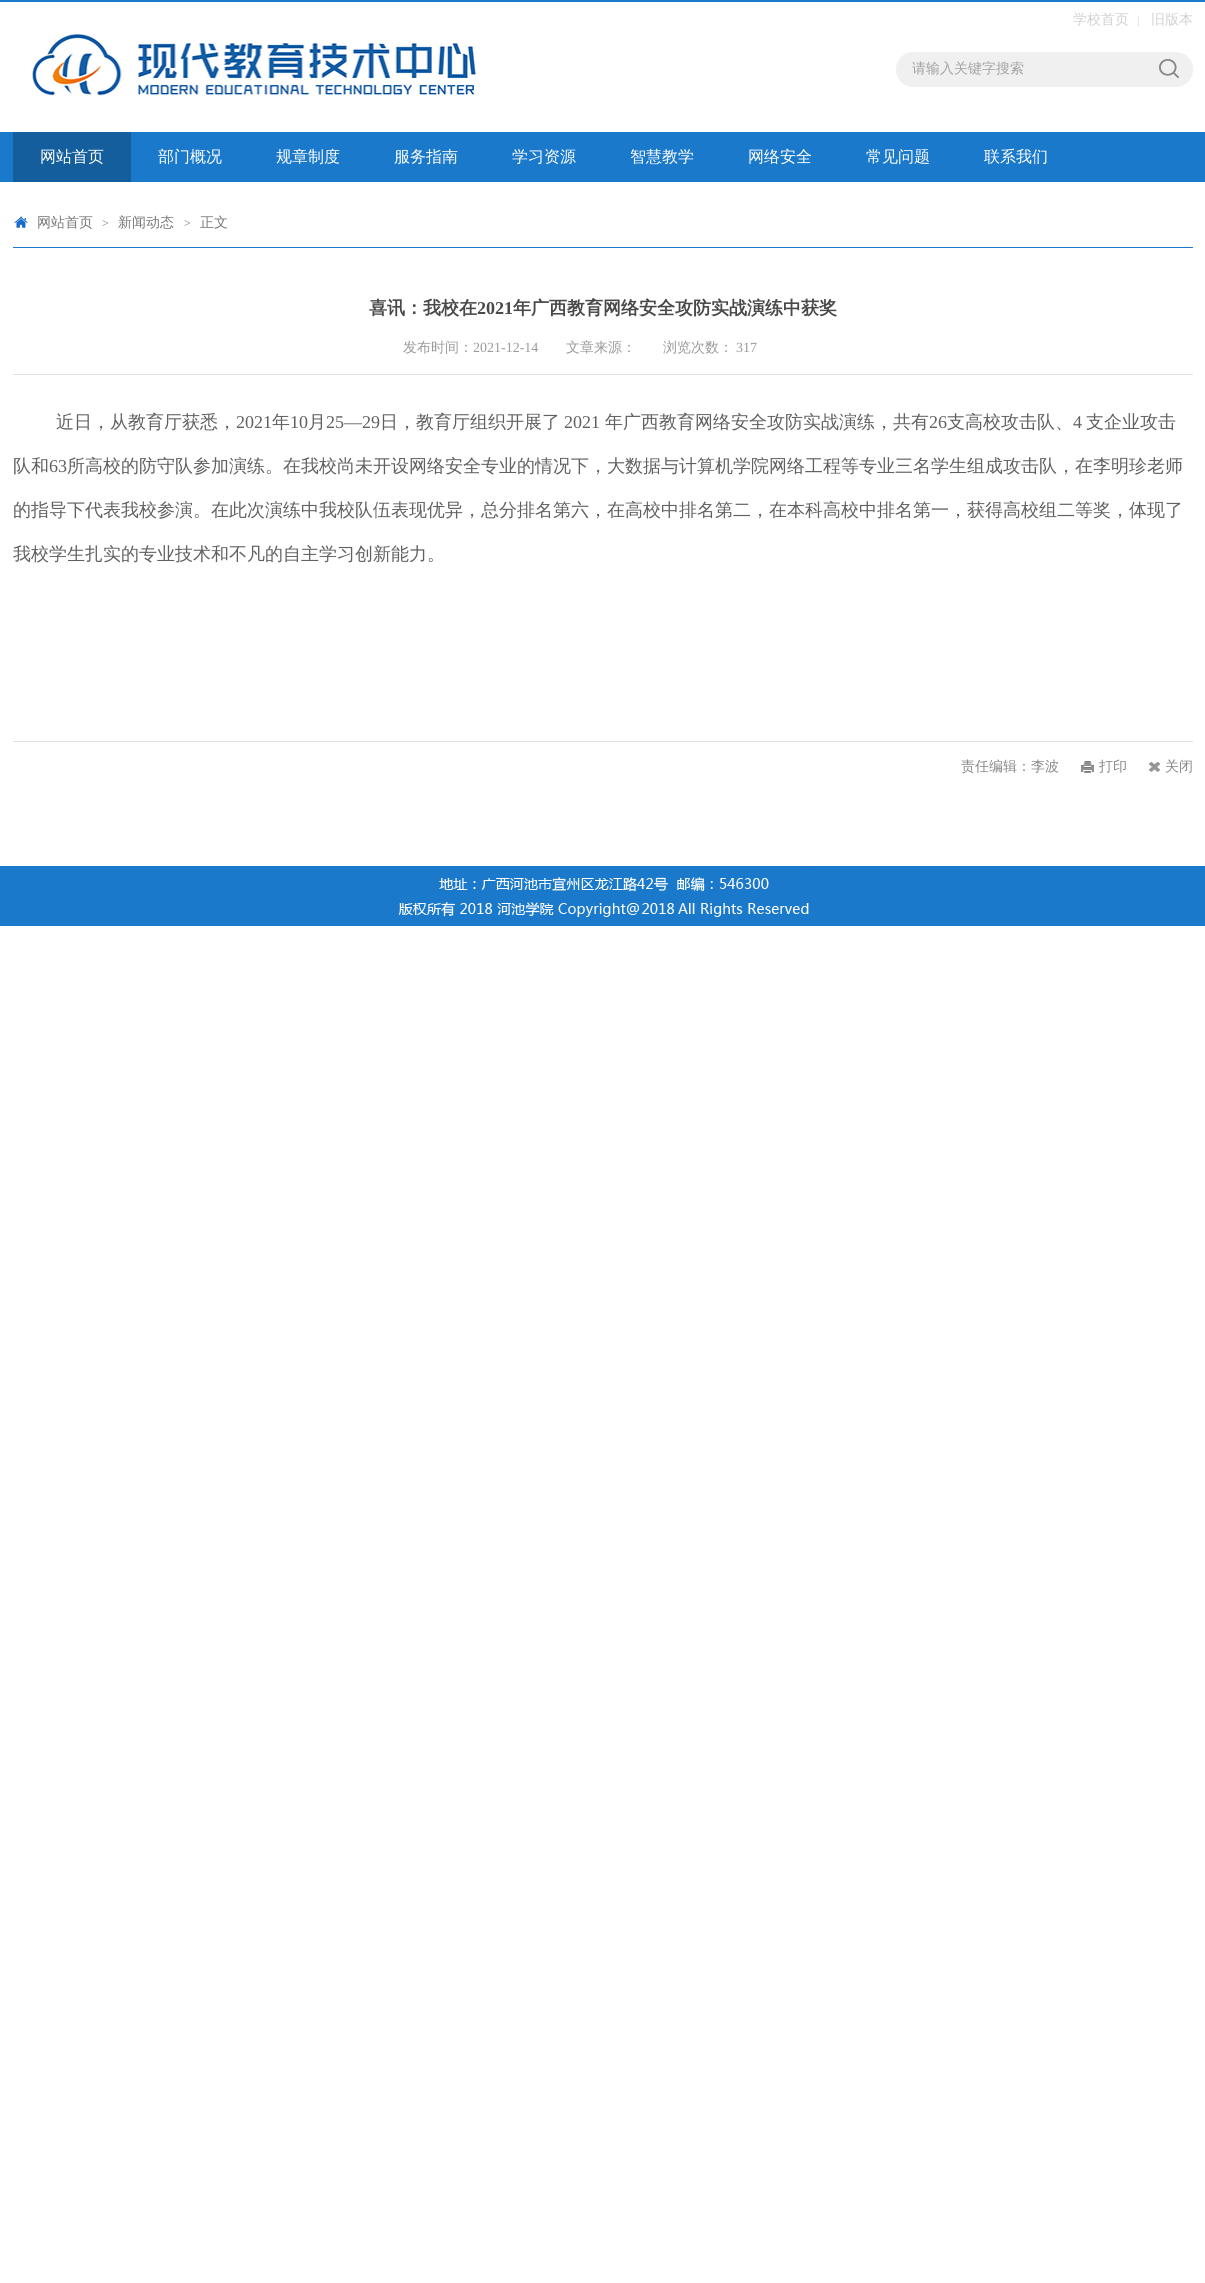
import math
import cairocffi as cairo

surface = cairo.ImageSurface(cairo.FORMAT_RGB24, 1205, 2283)
ctx = cairo.Context(surface)
options = cairo.FontOptions()
options.set_hint_metrics(cairo.HINT_METRICS_OFF)
options.set_hint_style(cairo.HINT_STYLE_NONE)
ctx.set_font_options(options)
ctx.set_miter_limit(4)


def rgb(r, g, b):
    ctx.set_source_rgb(r / 255, g / 255, b / 255)


def face(family, size, italic, bold):
    ctx.select_font_face(family, cairo.FONT_SLANT_ITALIC if italic else cairo.FONT_SLANT_NORMAL, cairo.FONT_WEIGHT_BOLD if bold else cairo.FONT_WEIGHT_NORMAL)
    ctx.set_font_size(size)


def label(x, y, s):
    ctx.move_to(x, y)
    ctx.show_text(s)


def rect(x, y, w, h):
    ctx.rectangle(x, y, w, h)
    ctx.fill()


def image(path, x, y, w, h):
    ctx.save()
    ctx.set_source_surface(cairo.ImageSurface.create_from_png(path), x, y)
    ctx.rectangle(x, y, w, h)
    ctx.fill()
    ctx.restore()


rgb(255, 255, 255)
ctx.paint()
rgb(26, 121, 203)
rect(0, 0, 1205, 2)
image('image0.png', 32, 34, 444, 63)
face('WenQuanYi Zen Hei Medium', 14, 0, 0)
rgb(209, 209, 209)
label(1073, 24, '学校首页')
face('Liberation Serif', 12, 0, 0)
label(1137, 24, '|')
face('WenQuanYi Zen Hei Medium', 14, 0, 0)
label(1151, 24, '旧版本')
image('image1.png', 896, 52, 297, 35)
rgb(162, 162, 162)
label(912, 73, '请输入关键字搜索')
image('image2.png', 1159, 59, 20, 19)
rgb(26, 121, 203)
rect(0, 132, 1205, 50)
rgb(21, 94, 158)
rect(13, 132, 118, 50)
face('WenQuanYi Zen Hei Medium', 16, 0, 0)
rgb(255, 255, 255)
label(40, 162, '网站首页')
label(158, 162, '部门概况')
label(276, 162, '规章制度')
label(394, 162, '服务指南')
label(512, 162, '学习资源')
label(630, 162, '智慧教学')
label(748, 162, '网络安全')
label(866, 162, '常见问题')
label(984, 162, '联系我们')
rgb(26, 121, 203)
rect(13, 247, 1180, 1)
image('image3.png', 14, 216, 14, 12)
face('WenQuanYi Zen Hei Medium', 14, 0, 0)
rgb(120, 120, 120)
label(37, 227, '网站首页')
face('Liberation Serif', 12, 0, 0)
label(102, 227, '>')
face('WenQuanYi Zen Hei Medium', 14, 0, 0)
label(118, 227, '新闻动态')
face('Liberation Serif', 12, 0, 0)
label(184, 227, '>')
face('WenQuanYi Zen Hei Medium', 14, 0, 0)
label(200, 227, '正文')
face('WenQuanYi Zen Hei', 18, 0, 1)
rgb(72, 72, 72)
label(369, 314, '喜讯：我校在')
face('Liberation Serif', 18, 0, 1)
label(477, 314, '2021')
face('WenQuanYi Zen Hei', 18, 0, 1)
label(513, 314, '年广西教育网络安全攻防实战演练中获奖')
rgb(225, 225, 225)
rect(13, 374, 1180, 1)
face('WenQuanYi Zen Hei Medium', 14, 0, 0)
rgb(154, 154, 154)
label(403, 352, '发布时间：')
face('Liberation Serif', 14, 0, 0)
label(473, 352, '2021-12-14')
face('WenQuanYi Zen Hei Medium', 14, 0, 0)
label(566, 352, '文章来源：')
label(663, 352, '浏览次数：')
face('Liberation Serif', 14, 0, 0)
label(736, 352, '317')
face('WenQuanYi Zen Hei Medium', 18, 0, 0)
rgb(96, 96, 96)
label(56, 428, '近日，从教育厅获悉，')
face('Liberation Serif', 18, 0, 0)
label(236, 428, '2021')
face('WenQuanYi Zen Hei Medium', 18, 0, 0)
label(272, 428, '年')
face('Liberation Serif', 18, 0, 0)
label(290, 428, '10')
face('WenQuanYi Zen Hei Medium', 18, 0, 0)
label(308, 428, '月')
face('Liberation Serif', 18, 0, 0)
label(326, 428, '25—29')
face('WenQuanYi Zen Hei Medium', 18, 0, 0)
label(380, 428, '日，教育厅组织开展了')
face('Liberation Serif', 18, 0, 0)
label(564, 428, '2021')
face('WenQuanYi Zen Hei Medium', 18, 0, 0)
label(605, 428, '年广西教育网络安全攻防实战演练，共有')
face('Liberation Serif', 18, 0, 0)
label(929, 428, '26')
face('WenQuanYi Zen Hei Medium', 18, 0, 0)
label(947, 428, '支高校攻击队、')
face('Liberation Serif', 18, 0, 0)
label(1073, 428, '4')
face('WenQuanYi Zen Hei Medium', 18, 0, 0)
label(1086, 428, '支企业攻击')
label(13, 472, '队和')
face('Liberation Serif', 18, 0, 0)
label(49, 472, '63')
face('WenQuanYi Zen Hei Medium', 18, 0, 0)
label(67, 472, '所高校的防守队参加演练。在我校尚未开设网络安全专业的情况下，大数据与计算机学院网络工程等专业三名学生组成攻击队，在李明珍老师')
label(13, 516, '的指导下代表我校参演。在此次演练中我校队伍表现优异，总分排名第六，在高校中排名第二，在本科高校中排名第一，获得高校组二等奖，体现了')
label(13, 560, '我校学生扎实的专业技术和不凡的自主学习创新能力。')
rgb(225, 225, 225)
rect(13, 741, 1180, 1)
face('WenQuanYi Zen Hei Medium', 14, 0, 0)
rgb(135, 135, 135)
label(961, 771, '责任编辑：李波')
image('image4.png', 1081, 761, 13, 12)
label(1099, 771, '打印')
image('image5.png', 1149, 762, 11, 10)
label(1165, 771, '关闭')
rgb(26, 121, 203)
rect(0, 866, 1205, 60)
image('image6.png', 398, 866, 416, 51)
surface.write_to_png('render.png')
